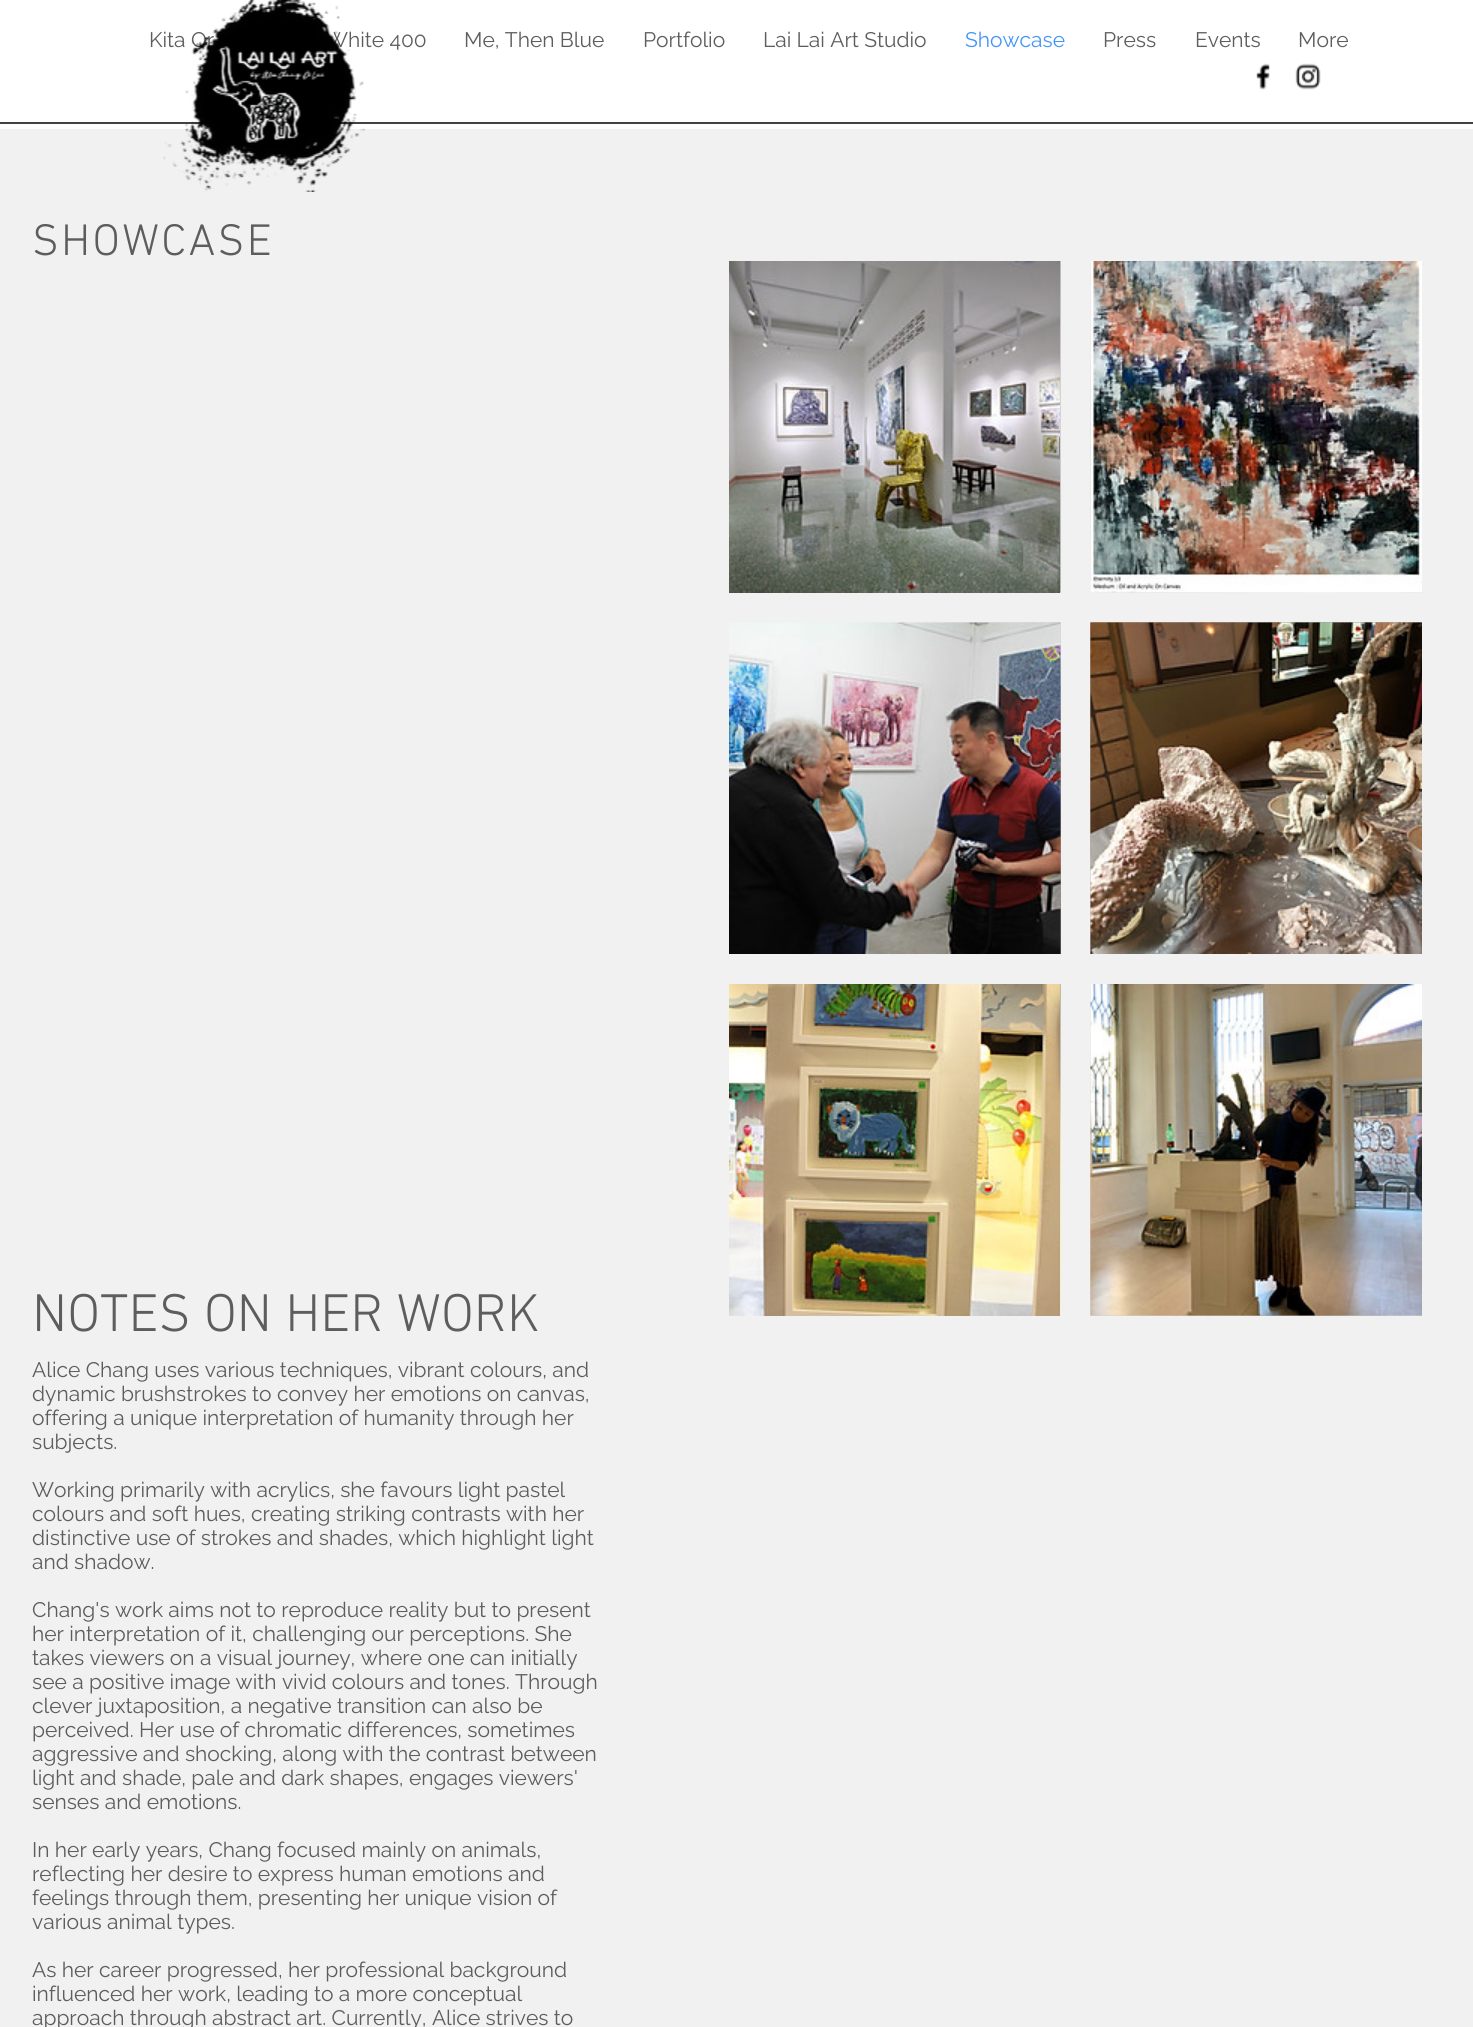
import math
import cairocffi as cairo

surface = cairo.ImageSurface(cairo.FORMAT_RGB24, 1473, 2027)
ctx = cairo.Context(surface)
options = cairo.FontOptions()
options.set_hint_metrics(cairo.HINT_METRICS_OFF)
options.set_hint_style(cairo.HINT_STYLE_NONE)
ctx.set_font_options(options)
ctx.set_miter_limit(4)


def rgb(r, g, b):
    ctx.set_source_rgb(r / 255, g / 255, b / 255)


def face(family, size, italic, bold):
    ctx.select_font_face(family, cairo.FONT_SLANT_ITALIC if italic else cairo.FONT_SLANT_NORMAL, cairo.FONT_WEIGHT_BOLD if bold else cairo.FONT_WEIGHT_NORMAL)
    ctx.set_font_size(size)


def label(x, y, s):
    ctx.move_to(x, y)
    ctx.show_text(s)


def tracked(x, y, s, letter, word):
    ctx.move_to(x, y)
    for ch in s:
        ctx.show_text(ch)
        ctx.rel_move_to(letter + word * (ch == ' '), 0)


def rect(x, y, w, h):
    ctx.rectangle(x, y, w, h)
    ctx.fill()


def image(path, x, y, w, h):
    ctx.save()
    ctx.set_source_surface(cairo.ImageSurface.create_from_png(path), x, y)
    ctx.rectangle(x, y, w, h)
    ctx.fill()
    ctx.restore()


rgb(241, 241, 241)
ctx.paint()
rgb(255, 255, 255)
rect(0, 0, 1473, 129)
rgb(66, 66, 66)
rect(0, 122, 1473, 2)
face('Raleway', 21, 0, 0)
rgb(94, 93, 93)
label(149, 47, 'Kita Or')
label(326, 47, 'White 400')
image('image0.png', 163, 0, 202, 192)
label(464, 47, 'Me, Then Blue')
label(643, 47, 'Portfolio')
label(763, 47, 'Lai Lai Art Studio')
rgb(69, 149, 247)
label(965, 47, 'Showcase')
rgb(94, 93, 93)
label(1103, 47, 'Press')
label(1195, 47, 'Events')
label(1298, 47, 'More')
image('image1.png', 1256, 63, 14, 27)
image('image2.png', 1295, 63, 26, 27)
face('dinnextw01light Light', 45, 0, 0)
tracked(32, 255, 'SHOWCASE', 2.25, 0)
image('image3.png', 729, 261, 331, 332)
image('image4.png', 1060, 261, 1, 332)
image('image5.png', 1090, 261, 332, 332)
image('image6.png', 1090, 261, 332, 332)
image('image7.png', 729, 622, 332, 332)
image('image8.png', 729, 622, 332, 332)
image('image9.png', 1090, 622, 332, 332)
image('image10.png', 1090, 622, 332, 332)
image('image11.png', 729, 984, 331, 332)
image('image12.png', 1060, 984, 1, 332)
image('image13.png', 1090, 984, 332, 332)
image('image14.png', 1090, 984, 332, 332)
face('dinnextw01light Light', 54, 0, 0)
label(32, 1331, 'NOTES ON HER WORK')
face('Raleway', 21, 0, 0)
label(32, 1377, 'Alice Chang uses various techniques, vibrant colours, and')
label(32, 1401, 'dynamic brushstrokes to convey her emotions on canvas,')
label(32, 1425, 'offering a unique interpretation of humanity through her')
label(32, 1449, 'subjects.')
label(32, 1497, 'Working primarily with acrylics, she favours light pastel')
label(32, 1521, 'colours and soft hues, creating striking contrasts with her')
label(32, 1545, 'distinctive use of strokes and shades, which highlight light')
label(32, 1569, 'and shadow.')
label(32, 1617, 'Chang\'s work aims not to reproduce reality but to present')
label(32, 1641, 'her interpretation of it, challenging our perceptions. She')
label(32, 1665, 'takes viewers on a visual journey, where one can initially')
label(32, 1689, 'see a positive image with vivid colours and tones. Through')
label(32, 1713, 'clever juxtaposition, a negative transition can also be')
label(32, 1737, 'perceived. Her use of chromatic differences, sometimes')
label(32, 1761, 'aggressive and shocking, along with the contrast between')
label(32, 1785, 'light and shade, pale and dark shapes, engages viewers\'')
label(32, 1809, 'senses and emotions.')
label(32, 1857, 'In her early years, Chang focused mainly on animals,')
label(32, 1881, 'reflecting her desire to express human emotions and')
label(32, 1905, 'feelings through them, presenting her unique vision of')
label(32, 1929, 'various animal types.')
label(32, 1977, 'As her career progressed, her professional background')
label(32, 2001, 'influenced her work, leading to a more conceptual')
label(32, 2025, 'approach through abstract art. Currently, Alice strives to')
surface.write_to_png('render.png')
